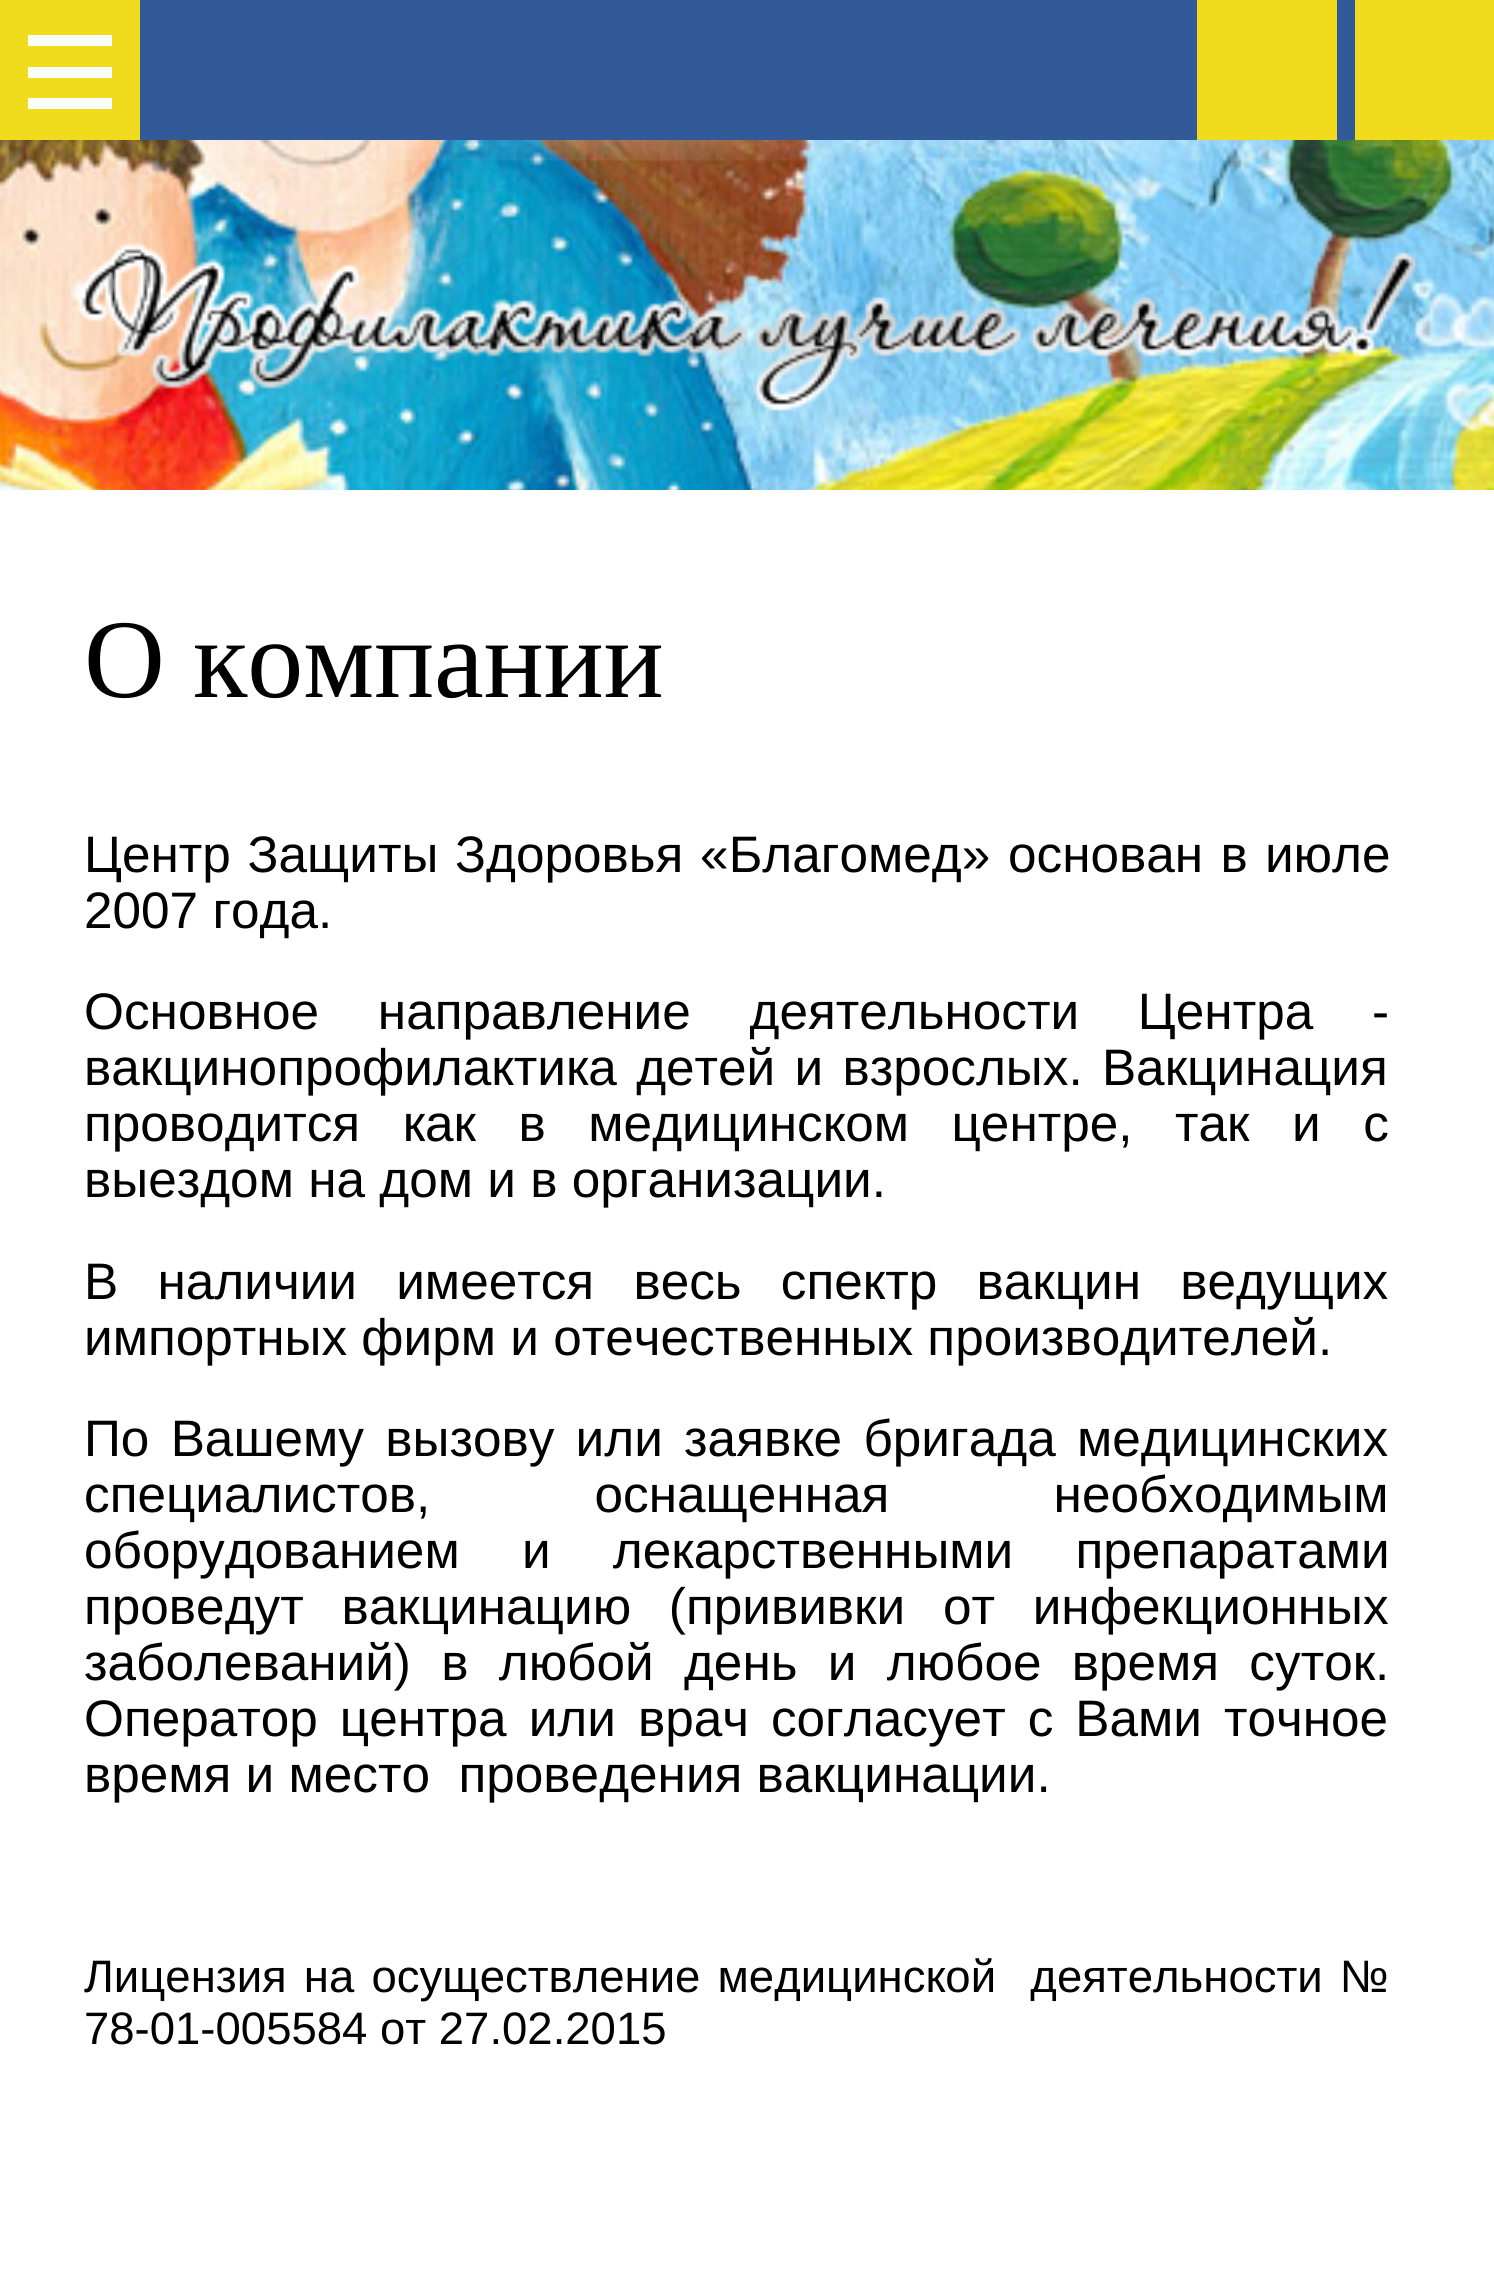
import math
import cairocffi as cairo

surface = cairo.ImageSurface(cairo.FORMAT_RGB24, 1494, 2292)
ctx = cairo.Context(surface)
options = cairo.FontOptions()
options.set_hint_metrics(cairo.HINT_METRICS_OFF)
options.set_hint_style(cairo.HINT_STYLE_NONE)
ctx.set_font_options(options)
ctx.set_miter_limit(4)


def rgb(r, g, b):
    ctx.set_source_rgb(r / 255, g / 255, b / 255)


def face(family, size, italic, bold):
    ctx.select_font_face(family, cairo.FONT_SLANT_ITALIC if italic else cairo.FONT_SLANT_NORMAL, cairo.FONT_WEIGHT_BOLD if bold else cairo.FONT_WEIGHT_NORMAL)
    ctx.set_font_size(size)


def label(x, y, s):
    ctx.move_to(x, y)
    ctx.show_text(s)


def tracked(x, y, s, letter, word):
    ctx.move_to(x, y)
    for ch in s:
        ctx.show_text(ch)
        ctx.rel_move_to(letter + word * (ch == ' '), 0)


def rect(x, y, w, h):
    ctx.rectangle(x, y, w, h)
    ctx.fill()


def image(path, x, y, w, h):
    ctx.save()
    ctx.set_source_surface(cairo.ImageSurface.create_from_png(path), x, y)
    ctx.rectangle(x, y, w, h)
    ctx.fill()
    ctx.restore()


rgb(255, 255, 255)
ctx.paint()
image('image0.png', 0, 140, 1494, 350)
rgb(240, 219, 29)
rect(0, 0, 140, 140)
rgb(255, 255, 255)
rect(28, 35, 84, 11)
rect(28, 98, 84, 11)
rect(28, 67, 84, 11)
rgb(50, 90, 152)
rect(140, 0, 1215, 140)
rgb(240, 219, 29)
rect(1197, 0, 140, 140)
rect(1355, 0, 139, 140)
image('image1.png', 170, 140, 1149, 21)
image('image2.png', 76, 242, 1343, 169)
face('Liberation Serif', 112, 0, 0)
rgb(0, 0, 0)
label(84, 697, 'О компании')
face('Liberation Sans', 51.3, 0, 0)
tracked(84, 872, 'Центр Защиты Здоровья «Благомед»', 0, 2.5)
tracked(1008, 872, 'основан в июле', 0, 3)
label(84, 928, '2007 года.')
tracked(84, 1029, 'Основное направление деятельности Центра -', 0, 44.5)
tracked(84, 1085, 'вакцинопрофилактика детей и взрослых. Вакцинация', 0, 5)
tracked(84, 1141, 'проводится как в медицинском центре, так и с', 0, 28.25)
label(84, 1197, 'выездом на дом и в организации.')
tracked(84, 1299, 'В наличии имеется весь спектр вакцин ведущих', 0, 25)
label(84, 1355, 'импортных фирм и отечественных производителей.')
tracked(84, 1456, 'По Вашему вызову или заявке бригада медицинских', 0, 7)
tracked(84, 1512, 'специалистов, оснащенная необходимым', 0, 150)
tracked(84, 1568, 'оборудованием и лекарственными препаратами', 0, 48)
tracked(84, 1624, 'проведут вакцинацию (прививки от инфекционных', 0, 23.5)
tracked(84, 1680, 'заболеваний) в любой день и любое время суток.', 0, 16)
tracked(84, 1736, 'Оператор центра или врач cогласует с Вами точное', 0, 7.75)
label(84, 1792, 'время и место  проведения вакцинации.')
face('Liberation Sans', 45.5, 0, 0)
tracked(84, 1992, 'Лицензия на осуществление медицинской  деятельности №', 0, 4.5)
label(84, 2044, '78-01-005584 от 27.02.2015')
surface.write_to_png('render.png')
